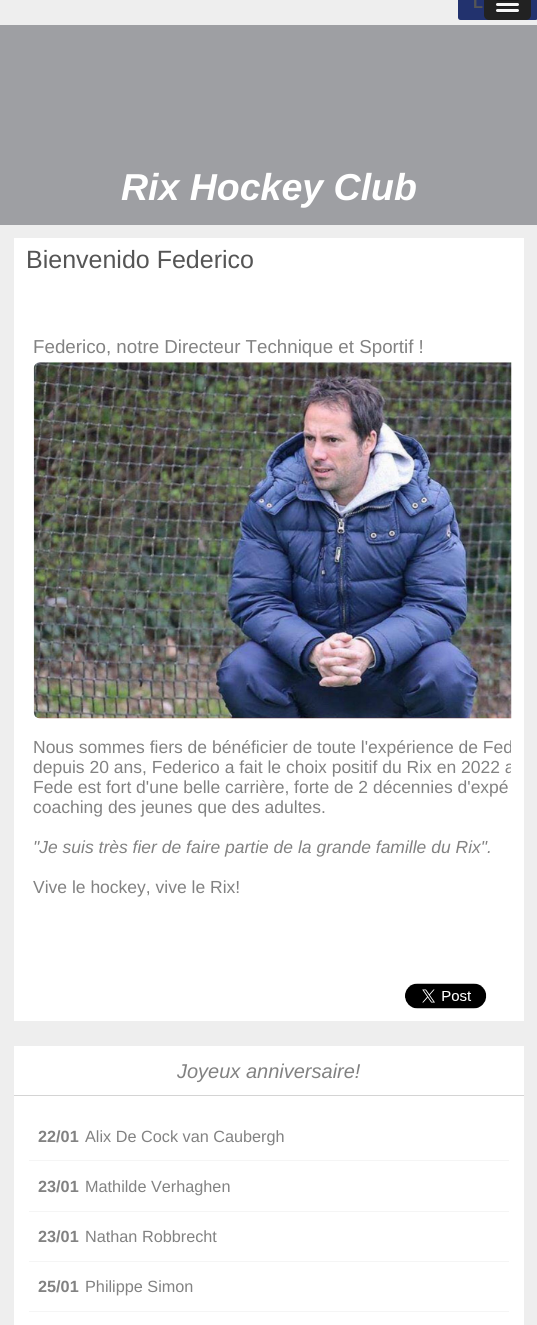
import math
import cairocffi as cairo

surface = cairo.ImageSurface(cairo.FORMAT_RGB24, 537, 1325)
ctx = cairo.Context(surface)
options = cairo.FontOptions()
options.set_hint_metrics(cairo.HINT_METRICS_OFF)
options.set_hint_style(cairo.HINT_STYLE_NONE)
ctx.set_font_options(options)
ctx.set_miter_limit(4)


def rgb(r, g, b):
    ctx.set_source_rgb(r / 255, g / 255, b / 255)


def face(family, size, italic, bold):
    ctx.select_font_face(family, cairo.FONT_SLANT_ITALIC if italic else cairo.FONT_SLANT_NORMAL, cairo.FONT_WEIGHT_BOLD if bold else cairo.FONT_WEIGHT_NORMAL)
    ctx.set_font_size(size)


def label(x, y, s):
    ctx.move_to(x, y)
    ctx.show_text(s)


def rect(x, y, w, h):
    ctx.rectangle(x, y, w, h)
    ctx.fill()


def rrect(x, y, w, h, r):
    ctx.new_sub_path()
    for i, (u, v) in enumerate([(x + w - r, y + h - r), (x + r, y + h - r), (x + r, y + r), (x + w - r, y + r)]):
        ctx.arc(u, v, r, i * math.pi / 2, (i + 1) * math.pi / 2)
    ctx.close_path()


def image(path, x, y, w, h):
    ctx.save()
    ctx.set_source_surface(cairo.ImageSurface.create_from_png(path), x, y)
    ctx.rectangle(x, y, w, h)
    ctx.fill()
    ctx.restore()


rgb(238, 238, 238)
ctx.paint()
rgb(34, 50, 110)
rrect(458, -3, 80, 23, 2.5)
ctx.fill()
rgb(34, 34, 34)
rrect(484, -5, 47, 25, 5)
ctx.fill()
rgb(26, 26, 26)
ctx.new_path()
ctx.move_to(496.5, -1.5)
ctx.curve_to(495.5, -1, 496, 0.5, 497, 1)
ctx.line_to(514, 1)
ctx.curve_to(515, 1, 518.5, 2, 519, 0)
ctx.curve_to(519, -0.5, 519, -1.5, 518.5, -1.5)
ctx.curve_to(517.5, -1, 497.5, -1, 496.5, -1.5)
ctx.close_path()
ctx.move_to(496.5, 4.5)
ctx.line_to(496, 6)
ctx.curve_to(496.5, 8, 500, 7, 501, 7)
ctx.line_to(514, 7)
ctx.curve_to(515, 7, 518.5, 8, 519, 6)
ctx.line_to(518.5, 4.5)
ctx.line_to(517.5, 5)
ctx.line_to(497.5, 5)
ctx.close_path()
ctx.fill()
rgb(245, 245, 245)
rrect(496, 3, 23, 3, 1.5)
ctx.fill()
rgb(26, 26, 26)
ctx.new_path()
ctx.move_to(496.5, 10.5)
ctx.line_to(496, 12)
ctx.curve_to(496.5, 14, 500, 13, 501, 13)
ctx.line_to(514, 13)
ctx.curve_to(515, 13, 518.5, 14, 519, 12)
ctx.line_to(518.5, 10.5)
ctx.curve_to(518.5, 11, 518, 11, 517.5, 11)
ctx.line_to(497.5, 11)
ctx.curve_to(497, 11, 496.5, 11, 496.5, 10.5)
ctx.close_path()
ctx.fill()
rgb(245, 245, 245)
rrect(496, 9, 23, 3, 1.5)
ctx.fill()
face('Liberation Sans', 16.25, 0, 1)
rgb(85, 85, 85)
label(473, 8, 'L')
rgb(158, 159, 163)
rect(0, 25, 537, 200)
face('Liberation Sans', 37.5, 1, 1)
rgb(255, 255, 255)
label(121, 200, 'Rix Hockey Club')
rect(14, 238, 510, 783)
face('Liberation Sans', 25, 0, 0)
rgb(85, 85, 85)
label(26, 268, 'Bienvenido Federico')
face('Liberation Sans', 18.75, 0, 0)
rgb(130, 130, 130)
label(33, 353, 'Federico, notre Directeur Technique et Sportif !')
image('image0.png', 33, 362, 479, 357)
ctx.save()
ctx.rectangle(26, 289, 485, 652)
ctx.clip()
face('Liberation Sans', 17.5, 0, 0)
label(33, 753, 'Nous sommes fiers de bénéficier de toute l\'expérience de Fed')
label(33, 773, 'depuis 20 ans, Federico a fait le choix positif du Rix en 2022 a')
ctx.restore()
face('Liberation Sans', 17.5, 0, 0)
label(33, 793, 'Fede est fort d\'une belle carrière, forte de 2 décennies d\'expé')
label(33, 813, 'coaching des jeunes que des adultes.')
face('Liberation Sans', 17.5, 1, 0)
label(33, 853, '"Je suis très fier de faire partie de la grande famille du Rix".')
face('Liberation Sans', 17.5, 0, 0)
label(33, 893, 'Vive le hockey, vive le Rix!')
image('image1.png', 405, 983, 82, 26)
rgb(255, 255, 255)
rect(14, 1046, 510, 279)
rgb(212, 212, 212)
rect(14, 1095, 510, 1)
face('Liberation Sans', 20, 1, 0)
rgb(130, 130, 130)
label(177, 1078, 'Joyeux anniversaire!')
rgb(245, 245, 245)
rect(29, 1160, 480, 1)
face('Liberation Sans', 16.25, 0, 1)
rgb(130, 130, 130)
label(38, 1142, '22/01')
face('Liberation Sans', 16.25, 0, 0)
label(85, 1142, 'Alix De Cock van Caubergh')
rgb(245, 245, 245)
rect(29, 1211, 480, 1)
face('Liberation Sans', 16.25, 0, 1)
rgb(130, 130, 130)
label(38, 1192, '23/01')
face('Liberation Sans', 16.25, 0, 0)
label(85, 1192, 'Mathilde Verhaghen')
rgb(245, 245, 245)
rect(29, 1261, 480, 1)
face('Liberation Sans', 16.25, 0, 1)
rgb(130, 130, 130)
label(38, 1242, '23/01')
face('Liberation Sans', 16.25, 0, 0)
label(85, 1242, 'Nathan Robbrecht')
rgb(245, 245, 245)
rect(29, 1311, 480, 1)
face('Liberation Sans', 16.25, 0, 1)
rgb(130, 130, 130)
label(38, 1292, '25/01')
face('Liberation Sans', 16.25, 0, 0)
label(85, 1292, 'Philippe Simon')
surface.write_to_png('render.png')
